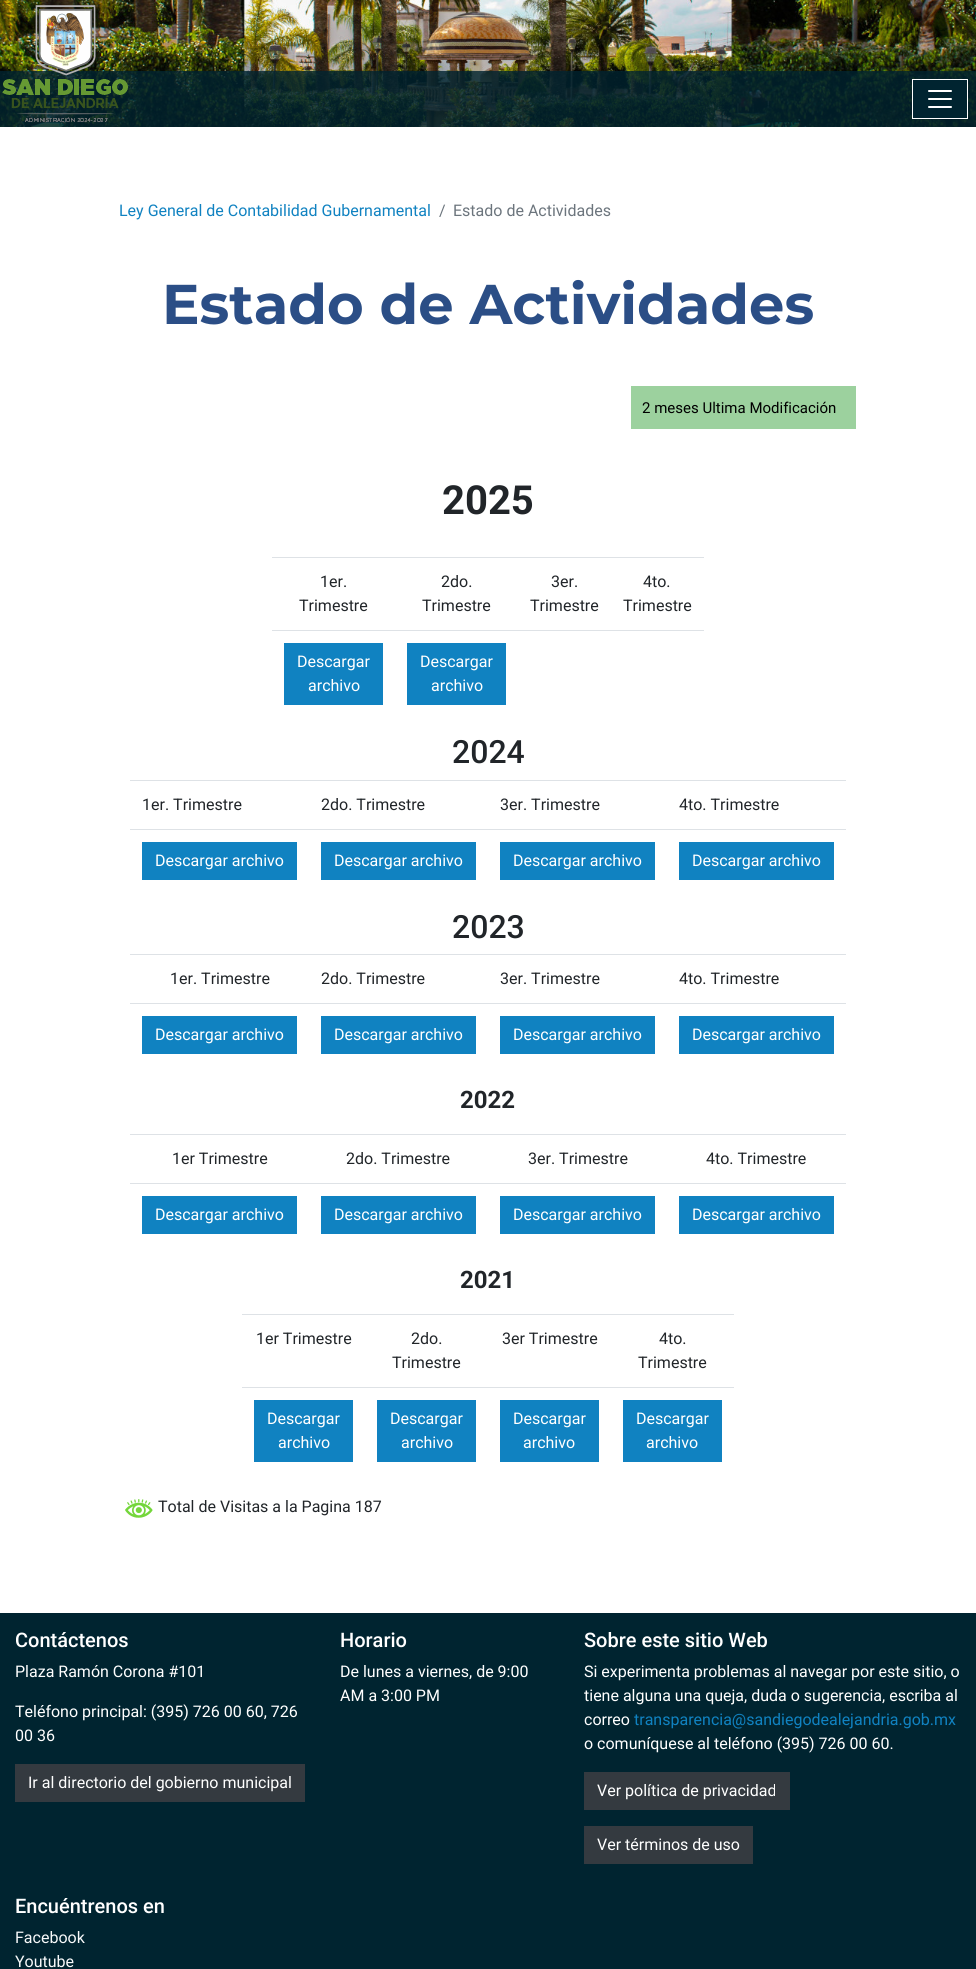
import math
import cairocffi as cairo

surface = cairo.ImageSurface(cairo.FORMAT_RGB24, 976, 1969)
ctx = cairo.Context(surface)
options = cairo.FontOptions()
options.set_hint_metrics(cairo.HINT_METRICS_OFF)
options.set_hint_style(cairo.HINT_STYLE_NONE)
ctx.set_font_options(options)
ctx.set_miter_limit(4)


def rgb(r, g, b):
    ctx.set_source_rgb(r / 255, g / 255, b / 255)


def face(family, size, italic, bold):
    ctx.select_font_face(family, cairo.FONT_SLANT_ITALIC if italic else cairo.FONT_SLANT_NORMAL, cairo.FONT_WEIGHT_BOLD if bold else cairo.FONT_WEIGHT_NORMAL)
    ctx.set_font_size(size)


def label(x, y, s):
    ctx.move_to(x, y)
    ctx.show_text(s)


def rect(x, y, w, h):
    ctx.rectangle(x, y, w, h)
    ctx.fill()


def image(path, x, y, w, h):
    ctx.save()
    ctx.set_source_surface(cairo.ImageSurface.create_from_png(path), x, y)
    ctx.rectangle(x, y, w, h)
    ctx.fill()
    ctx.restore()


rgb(255, 255, 255)
ctx.paint()
image('image0.png', 0, 0, 976, 127)
ctx.set_source_rgba(0, 0.141, 0.188, 0.8)
rect(0, 71, 976, 56)
image('image1.png', 2, 5, 126, 117)
rgb(0, 36, 48)
ctx.rectangle(912.5, 79.5, 55, 39)
ctx.fill_preserve()
rgb(255, 255, 255)
ctx.set_line_width(1)
ctx.stroke()
image('image2.png', 928, 90, 24, 18)
face('Roboto', 16, 0, 0)
rgb(16, 130, 193)
label(119, 216, 'Ley General de Contabilidad Gubernamental')
rgb(108, 117, 125)
label(439, 216, '/')
label(453, 216, 'Estado de Actividades')
face('Montserrat', 56, 0, 1)
rgb(43, 78, 134)
label(162, 324, 'Estado de Actividades')
rgb(156, 209, 158)
rect(631, 386, 225, 43)
face('Roboto', 15, 0, 0)
rgb(0, 0, 0)
label(642, 413, '2 meses Ultima Modificación')
face('Roboto', 40, 0, 1)
rgb(33, 37, 41)
label(442, 514, '2025')
face('Roboto', 16, 0, 0)
label(320, 587, '1er.')
label(299, 611, 'Trimestre')
label(441, 587, '2do.')
label(422, 611, 'Trimestre')
label(551, 587, '3er.')
label(530, 611, 'Trimestre')
rgb(222, 226, 230)
rect(272, 557, 432, 1)
rgb(33, 37, 41)
label(643, 587, '4to.')
label(623, 611, 'Trimestre')
rgb(222, 226, 230)
rect(272, 630, 432, 1)
rgb(16, 130, 193)
rect(284, 643, 99, 62)
rgb(255, 255, 255)
label(297, 667, 'Descargar')
label(308, 691, 'archivo')
rgb(16, 130, 193)
rect(407, 643, 99, 62)
rgb(255, 255, 255)
label(420, 667, 'Descargar')
label(431, 691, 'archivo')
face('Roboto Medium', 32, 0, 0)
rgb(33, 37, 41)
label(452, 763, '2024')
face('Roboto', 16, 0, 0)
label(142, 810, '1er. Trimestre')
label(321, 810, '2do. Trimestre')
label(500, 810, '3er. Trimestre')
rgb(222, 226, 230)
rect(130, 780, 716, 1)
rgb(33, 37, 41)
label(679, 810, '4to. Trimestre')
rgb(16, 130, 193)
rect(142, 842, 155, 38)
rgb(255, 255, 255)
label(155, 866, 'Descargar archivo')
rgb(16, 130, 193)
rect(321, 842, 155, 38)
rgb(255, 255, 255)
label(334, 866, 'Descargar archivo')
rgb(16, 130, 193)
rect(500, 842, 155, 38)
rgb(255, 255, 255)
label(513, 866, 'Descargar archivo')
rgb(222, 226, 230)
rect(130, 829, 716, 1)
rgb(16, 130, 193)
rect(679, 842, 155, 38)
rgb(255, 255, 255)
label(692, 866, 'Descargar archivo')
face('Roboto Medium', 32, 0, 0)
rgb(33, 37, 41)
label(452, 938, '2023')
face('Roboto', 16, 0, 0)
label(170, 984, '1er. Trimestre')
label(321, 984, '2do. Trimestre')
label(500, 984, '3er. Trimestre')
rgb(222, 226, 230)
rect(130, 954, 716, 1)
rgb(33, 37, 41)
label(679, 984, '4to. Trimestre')
rgb(16, 130, 193)
rect(142, 1016, 155, 38)
rgb(255, 255, 255)
label(155, 1040, 'Descargar archivo')
rgb(16, 130, 193)
rect(321, 1016, 155, 38)
rgb(255, 255, 255)
label(334, 1040, 'Descargar archivo')
rgb(16, 130, 193)
rect(500, 1016, 155, 38)
rgb(255, 255, 255)
label(513, 1040, 'Descargar archivo')
rgb(222, 226, 230)
rect(130, 1003, 716, 1)
rgb(16, 130, 193)
rect(679, 1016, 155, 38)
rgb(255, 255, 255)
label(692, 1040, 'Descargar archivo')
face('Roboto', 24, 0, 1)
rgb(33, 37, 41)
label(460, 1108, '2022')
face('Roboto', 16, 0, 0)
label(172, 1164, '1er Trimestre')
label(346, 1164, '2do. Trimestre')
label(528, 1164, '3er. Trimestre')
rgb(222, 226, 230)
rect(130, 1134, 716, 1)
rgb(33, 37, 41)
label(706, 1164, '4to. Trimestre')
rgb(16, 130, 193)
rect(142, 1196, 155, 38)
rgb(255, 255, 255)
label(155, 1220, 'Descargar archivo')
rgb(16, 130, 193)
rect(321, 1196, 155, 38)
rgb(255, 255, 255)
label(334, 1220, 'Descargar archivo')
rgb(16, 130, 193)
rect(500, 1196, 155, 38)
rgb(255, 255, 255)
label(513, 1220, 'Descargar archivo')
rgb(222, 226, 230)
rect(130, 1183, 716, 1)
rgb(16, 130, 193)
rect(679, 1196, 155, 38)
rgb(255, 255, 255)
label(692, 1220, 'Descargar archivo')
face('Roboto', 24, 0, 1)
rgb(33, 37, 41)
label(460, 1288, '2021')
face('Roboto', 16, 0, 0)
label(256, 1344, '1er Trimestre')
label(411, 1344, '2do.')
label(392, 1368, 'Trimestre')
label(502, 1344, '3er Trimestre')
rgb(222, 226, 230)
rect(242, 1314, 492, 1)
rgb(33, 37, 41)
label(659, 1344, '4to.')
label(638, 1368, 'Trimestre')
rgb(16, 130, 193)
rect(254, 1400, 99, 62)
rgb(255, 255, 255)
label(267, 1424, 'Descargar')
label(278, 1448, 'archivo')
rgb(16, 130, 193)
rect(377, 1400, 99, 62)
rgb(255, 255, 255)
label(390, 1424, 'Descargar')
label(401, 1448, 'archivo')
rgb(16, 130, 193)
rect(500, 1400, 99, 62)
rgb(255, 255, 255)
label(513, 1424, 'Descargar')
label(523, 1448, 'archivo')
rgb(222, 226, 230)
rect(242, 1387, 492, 1)
rgb(16, 130, 193)
rect(623, 1400, 99, 62)
rgb(255, 255, 255)
label(636, 1424, 'Descargar')
label(646, 1448, 'archivo')
image('image3.png', 125, 1499, 28, 19)
rgb(33, 37, 41)
label(158, 1512, 'Total de Visitas a la Pagina 187')
rgb(0, 36, 48)
rect(0, 1613, 976, 356)
face('Roboto Medium', 20, 0, 0)
rgb(255, 255, 255)
label(15, 1647, 'Contáctenos')
face('Roboto', 16, 0, 0)
label(15, 1677, 'Plaza Ramón Corona #101')
label(15, 1717, 'Teléfono principal: (395) 726 00 60, 726')
label(15, 1741, '00 36')
rgb(52, 58, 64)
rect(15, 1764, 290, 38)
rgb(255, 255, 255)
label(28, 1788, 'Ir al directorio del gobierno municipal')
face('Roboto Medium', 20, 0, 0)
label(340, 1647, 'Horario')
face('Roboto', 16, 0, 0)
label(340, 1677, 'De lunes a viernes, de 9:00')
label(340, 1701, 'AM a 3:00 PM')
face('Roboto Medium', 20, 0, 0)
label(584, 1647, 'Sobre este sitio Web')
face('Roboto', 16, 0, 0)
label(584, 1677, 'Si experimenta problemas al navegar por este sitio, o')
label(584, 1701, 'tiene alguna una queja, duda o sugerencia, escriba al')
label(584, 1725, 'correo')
rgb(16, 130, 193)
label(634, 1725, 'transparencia@sandiegodealejandria.gob.mx')
rgb(255, 255, 255)
label(584, 1749, 'o comuníquese al teléfono (395) 726 00 60.')
rgb(52, 58, 64)
rect(584, 1772, 206, 38)
rgb(255, 255, 255)
label(597, 1796, 'Ver política de privacidad')
rgb(52, 58, 64)
rect(584, 1826, 169, 38)
rgb(255, 255, 255)
label(597, 1850, 'Ver términos de uso')
face('Roboto Medium', 20, 0, 0)
label(15, 1913, 'Encuéntrenos en')
face('Roboto', 16, 0, 0)
rgb(248, 249, 250)
label(15, 1943, 'Facebook')
label(15, 1967, 'Youtube')
surface.write_to_png('render.png')
